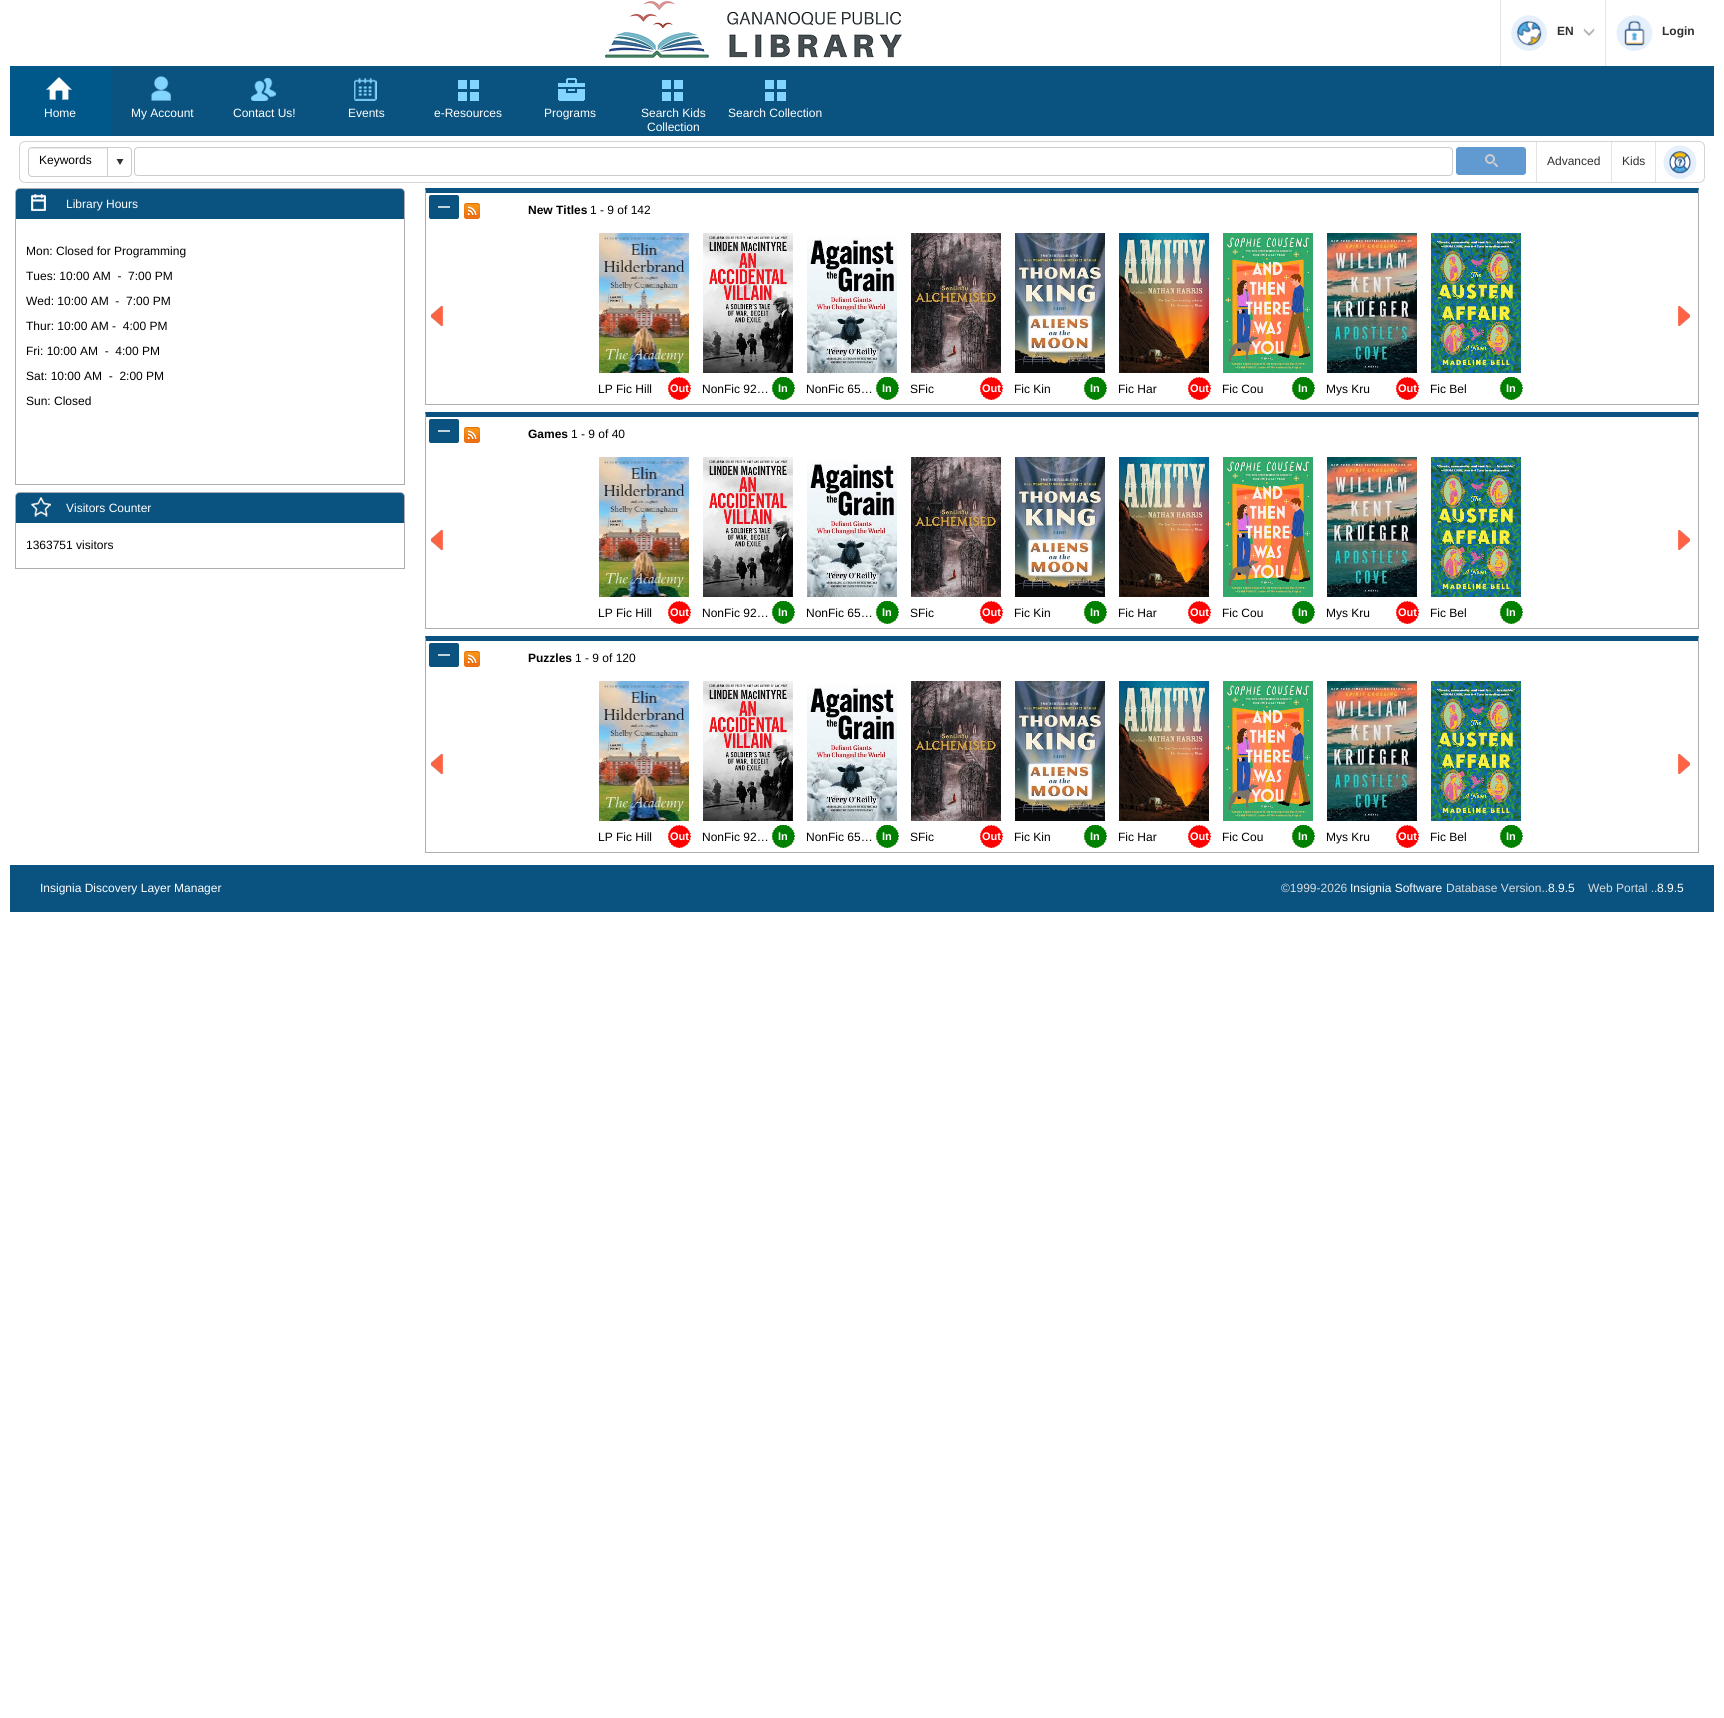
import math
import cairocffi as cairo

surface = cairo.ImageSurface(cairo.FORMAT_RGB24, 1724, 1718)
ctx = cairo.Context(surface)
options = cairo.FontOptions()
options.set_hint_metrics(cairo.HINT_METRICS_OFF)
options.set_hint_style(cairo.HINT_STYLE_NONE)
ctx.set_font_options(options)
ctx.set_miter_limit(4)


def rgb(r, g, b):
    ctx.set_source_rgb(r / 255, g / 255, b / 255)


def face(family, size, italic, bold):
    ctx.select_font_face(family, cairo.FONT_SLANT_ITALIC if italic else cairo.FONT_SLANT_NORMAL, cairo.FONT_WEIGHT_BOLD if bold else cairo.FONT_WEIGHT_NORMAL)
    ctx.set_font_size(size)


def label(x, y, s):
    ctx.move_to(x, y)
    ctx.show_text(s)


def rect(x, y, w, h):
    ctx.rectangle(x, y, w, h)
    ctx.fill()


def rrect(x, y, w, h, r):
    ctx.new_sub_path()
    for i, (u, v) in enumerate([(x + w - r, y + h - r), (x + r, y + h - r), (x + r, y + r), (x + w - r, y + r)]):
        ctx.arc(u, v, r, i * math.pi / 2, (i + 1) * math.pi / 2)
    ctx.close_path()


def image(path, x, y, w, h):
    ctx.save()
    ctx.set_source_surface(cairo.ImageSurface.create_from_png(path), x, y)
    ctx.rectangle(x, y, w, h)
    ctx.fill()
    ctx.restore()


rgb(255, 255, 255)
ctx.paint()
image('image0.png', 605, 1, 297, 57)
rgb(227, 228, 232)
rect(1500, 0, 1, 66)
image('image1.png', 1511, 15, 36, 36)
face('Liberation Sans', 12, 0, 1)
rgb(47, 47, 47)
label(1557, 35, 'EN')
image('image2.png', 1583, 28, 12, 8)
rgb(227, 228, 232)
rect(1605, 0, 1, 66)
image('image3.png', 1616, 15, 37, 36)
rgb(47, 47, 47)
label(1662, 35, 'Login')
rgb(10, 82, 128)
rect(112, 66, 1602, 70)
rgb(0, 88, 138)
rect(10, 66, 102, 70)
image('image4.png', 46, 77, 26, 23)
face('Liberation Sans', 12, 0, 0)
rgb(255, 255, 255)
label(44, 117, 'Home')
image('image5.png', 151, 76, 20, 25)
label(131, 117, 'My Account')
image('image6.png', 251, 78, 25, 23)
label(233, 117, 'Contact Us!')
image('image7.png', 354, 78, 23, 23)
label(348, 117, 'Events')
image('image8.png', 458, 80, 21, 21)
label(434, 117, 'e-Resources')
image('image9.png', 558, 78, 27, 23)
label(544, 117, 'Programs')
image('image8.png', 662, 80, 21, 21)
label(641, 117, 'Search Kids')
label(647, 131, 'Collection')
image('image8.png', 765, 80, 21, 21)
label(728, 117, 'Search Collection')
rrect(19.5, 141.5, 1685, 41, 5.5)
rgb(211, 212, 216)
ctx.set_line_width(1)
ctx.stroke()
rgb(227, 228, 232)
rect(1536, 142, 1, 40)
rrect(28.5, 147.5, 103, 29, 3.5)
rgb(204, 204, 204)
ctx.stroke()
rgb(255, 255, 255)
ctx.new_path()
ctx.move_to(32, 148)
ctx.line_to(108, 148)
ctx.line_to(108, 172)
ctx.line_to(32, 172)
ctx.curve_to(30.5, 172, 29, 170.5, 29, 169)
ctx.line_to(29, 151)
ctx.curve_to(29, 149.5, 30.5, 148, 32, 148)
ctx.close_path()
ctx.fill()
ctx.set_source_rgba(0, 0, 0, 0.07)
ctx.new_path()
ctx.move_to(32, 149)
ctx.line_to(108, 149)
ctx.line_to(108, 148)
ctx.line_to(32, 148)
ctx.curve_to(30, 148, 29, 149, 29, 151)
ctx.line_to(29, 152)
ctx.curve_to(29, 150, 30, 149, 32, 149)
ctx.close_path()
ctx.fill()
rgb(0, 0, 0)
label(39, 164, 'Keywords')
rgb(204, 204, 204)
rect(107, 148, 1, 28)
image('image10.png', 116, 159, 8, 6)
rrect(134.5, 147.5, 1318, 28, 3.5)
ctx.stroke()
rgb(97, 153, 209)
rrect(1456, 147, 70, 28, 3)
ctx.fill()
image('image11.png', 1485, 154, 13, 13)
rgb(227, 228, 232)
rect(1611, 142, 1, 40)
rgb(47, 47, 47)
label(1547, 165, 'Advanced')
rgb(227, 228, 232)
rect(1655, 142, 1, 40)
rgb(47, 47, 47)
label(1622, 165, 'Kids')
image('image12.png', 1663, 145, 34, 34)
ctx.new_path()
ctx.move_to(20, 188.5)
ctx.line_to(400, 188.5)
ctx.curve_to(402.5, 188.5, 404.5, 190.5, 404.5, 193)
ctx.line_to(404.5, 484.5)
ctx.line_to(15.5, 484.5)
ctx.line_to(15.5, 193)
ctx.curve_to(15.5, 190.5, 17.5, 188.5, 20, 188.5)
ctx.close_path()
rgb(172, 173, 178)
ctx.stroke()
rgb(10, 82, 128)
ctx.new_path()
ctx.move_to(19, 189)
ctx.line_to(401, 189)
ctx.curve_to(402.5, 189, 404, 190.5, 404, 192)
ctx.line_to(404, 219)
ctx.line_to(16, 219)
ctx.line_to(16, 192)
ctx.curve_to(16, 190.5, 17.5, 189, 19, 189)
ctx.close_path()
ctx.fill()
image('image13.png', 31, 194, 15, 17)
rgb(255, 255, 255)
label(66, 208, 'Library Hours')
rgb(0, 0, 0)
label(26, 255, 'Mon: Closed for Programming')
label(26, 280, 'Tues: 10:00 AM  -  7:00 PM')
label(26, 305, 'Wed: 10:00 AM  -  7:00 PM')
label(26, 330, 'Thur: 10:00 AM -  4:00 PM')
label(26, 355, 'Fri: 10:00 AM  -  4:00 PM')
label(26, 380, 'Sat: 10:00 AM  -  2:00 PM')
label(26, 405, 'Sun: Closed')
ctx.new_path()
ctx.move_to(20, 492.5)
ctx.line_to(400, 492.5)
ctx.curve_to(402.5, 492.5, 404.5, 494.5, 404.5, 497)
ctx.line_to(404.5, 568.5)
ctx.line_to(15.5, 568.5)
ctx.line_to(15.5, 497)
ctx.curve_to(15.5, 494.5, 17.5, 492.5, 20, 492.5)
ctx.close_path()
rgb(172, 173, 178)
ctx.stroke()
rgb(10, 82, 128)
ctx.new_path()
ctx.move_to(19, 493)
ctx.line_to(401, 493)
ctx.curve_to(402.5, 493, 404, 494.5, 404, 496)
ctx.line_to(404, 523)
ctx.line_to(16, 523)
ctx.line_to(16, 496)
ctx.curve_to(16, 494.5, 17.5, 493, 19, 493)
ctx.close_path()
ctx.fill()
image('image14.png', 31, 497, 20, 20)
rgb(255, 255, 255)
label(66, 512, 'Visitors Counter')
rgb(0, 0, 0)
label(26, 549, '1363751 visitors')
rgb(10, 82, 128)
ctx.new_path()
ctx.move_to(425, 188)
ctx.line_to(1699, 188)
ctx.line_to(1698, 193)
ctx.line_to(426, 193)
ctx.close_path()
ctx.fill()
rgb(172, 173, 178)
ctx.new_path()
ctx.move_to(1699, 188)
ctx.line_to(1699, 405)
ctx.line_to(1698, 404)
ctx.line_to(1698, 193)
ctx.close_path()
ctx.fill()
rect(425, 404, 1274, 1)
ctx.new_path()
ctx.move_to(425, 405)
ctx.line_to(425, 188)
ctx.line_to(426, 193)
ctx.line_to(426, 404)
ctx.close_path()
ctx.fill()
rgb(10, 82, 128)
rrect(429, 195, 30, 24, 2)
ctx.fill()
rgb(194, 212, 223)
rect(438, 206, 12, 2)
image('image15.png', 464, 203, 16, 16)
face('Liberation Sans', 12, 0, 1)
rgb(0, 0, 0)
label(528, 214, 'New Titles')
face('Liberation Sans', 12, 0, 0)
label(590, 214, '1 - 9 of 142')
image('image16.png', 431, 306, 12, 20)
image('image17.png', 1678, 306, 12, 20)
image('image18.png', 599, 233, 90, 140)
label(598, 393, 'LP Fic Hill')
image('image19.png', 668, 377, 23, 23)
face('Liberation Sans', 11, 0, 1)
rgb(255, 255, 255)
label(670, 392, 'Out')
image('image20.png', 703, 233, 90, 140)
face('Liberation Sans', 12, 0, 0)
rgb(0, 0, 0)
label(702, 393, 'NonFic 92…')
image('image21.png', 772, 377, 23, 23)
face('Liberation Sans', 11, 0, 1)
rgb(255, 255, 255)
label(778, 392, 'In')
image('image22.png', 807, 237, 90, 136)
face('Liberation Sans', 12, 0, 0)
rgb(0, 0, 0)
label(806, 393, 'NonFic 65…')
image('image21.png', 876, 377, 23, 23)
face('Liberation Sans', 11, 0, 1)
rgb(255, 255, 255)
label(882, 392, 'In')
image('image23.png', 911, 233, 90, 140)
face('Liberation Sans', 12, 0, 0)
rgb(0, 0, 0)
label(910, 393, 'SFic')
image('image19.png', 980, 377, 23, 23)
face('Liberation Sans', 11, 0, 1)
rgb(255, 255, 255)
label(982, 392, 'Out')
image('image24.png', 1015, 233, 90, 140)
face('Liberation Sans', 12, 0, 0)
rgb(0, 0, 0)
label(1014, 393, 'Fic Kin')
image('image21.png', 1084, 377, 23, 23)
face('Liberation Sans', 11, 0, 1)
rgb(255, 255, 255)
label(1090, 392, 'In')
image('image25.png', 1119, 233, 90, 140)
face('Liberation Sans', 12, 0, 0)
rgb(0, 0, 0)
label(1118, 393, 'Fic Har')
image('image19.png', 1188, 377, 23, 23)
face('Liberation Sans', 11, 0, 1)
rgb(255, 255, 255)
label(1190, 392, 'Out')
image('image26.png', 1223, 233, 90, 140)
face('Liberation Sans', 12, 0, 0)
rgb(0, 0, 0)
label(1222, 393, 'Fic Cou')
image('image21.png', 1292, 377, 23, 23)
face('Liberation Sans', 11, 0, 1)
rgb(255, 255, 255)
label(1298, 392, 'In')
image('image27.png', 1327, 233, 90, 140)
face('Liberation Sans', 12, 0, 0)
rgb(0, 0, 0)
label(1326, 393, 'Mys Kru')
image('image19.png', 1396, 377, 23, 23)
face('Liberation Sans', 11, 0, 1)
rgb(255, 255, 255)
label(1398, 392, 'Out')
image('image28.png', 1431, 233, 90, 140)
face('Liberation Sans', 12, 0, 0)
rgb(0, 0, 0)
label(1430, 393, 'Fic Bel')
image('image21.png', 1500, 377, 23, 23)
face('Liberation Sans', 11, 0, 1)
rgb(255, 255, 255)
label(1506, 392, 'In')
rgb(10, 82, 128)
ctx.new_path()
ctx.move_to(425, 412)
ctx.line_to(1699, 412)
ctx.line_to(1698, 417)
ctx.line_to(426, 417)
ctx.close_path()
ctx.fill()
rgb(172, 173, 178)
ctx.new_path()
ctx.move_to(1699, 412)
ctx.line_to(1699, 629)
ctx.line_to(1698, 628)
ctx.line_to(1698, 417)
ctx.close_path()
ctx.fill()
rect(425, 628, 1274, 1)
ctx.new_path()
ctx.move_to(425, 629)
ctx.line_to(425, 412)
ctx.line_to(426, 417)
ctx.line_to(426, 628)
ctx.close_path()
ctx.fill()
rgb(10, 82, 128)
rrect(429, 419, 30, 24, 2)
ctx.fill()
rgb(194, 212, 223)
rect(438, 430, 12, 2)
image('image15.png', 464, 427, 16, 16)
face('Liberation Sans', 12, 0, 1)
rgb(0, 0, 0)
label(528, 438, 'Games')
face('Liberation Sans', 12, 0, 0)
label(571, 438, '1 - 9 of 40')
image('image16.png', 431, 530, 12, 20)
image('image17.png', 1678, 530, 12, 20)
image('image18.png', 599, 457, 90, 140)
label(598, 617, 'LP Fic Hill')
image('image19.png', 668, 601, 23, 23)
face('Liberation Sans', 11, 0, 1)
rgb(255, 255, 255)
label(670, 616, 'Out')
image('image20.png', 703, 457, 90, 140)
face('Liberation Sans', 12, 0, 0)
rgb(0, 0, 0)
label(702, 617, 'NonFic 92…')
image('image21.png', 772, 601, 23, 23)
face('Liberation Sans', 11, 0, 1)
rgb(255, 255, 255)
label(778, 616, 'In')
image('image22.png', 807, 461, 90, 136)
face('Liberation Sans', 12, 0, 0)
rgb(0, 0, 0)
label(806, 617, 'NonFic 65…')
image('image21.png', 876, 601, 23, 23)
face('Liberation Sans', 11, 0, 1)
rgb(255, 255, 255)
label(882, 616, 'In')
image('image23.png', 911, 457, 90, 140)
face('Liberation Sans', 12, 0, 0)
rgb(0, 0, 0)
label(910, 617, 'SFic')
image('image19.png', 980, 601, 23, 23)
face('Liberation Sans', 11, 0, 1)
rgb(255, 255, 255)
label(982, 616, 'Out')
image('image24.png', 1015, 457, 90, 140)
face('Liberation Sans', 12, 0, 0)
rgb(0, 0, 0)
label(1014, 617, 'Fic Kin')
image('image21.png', 1084, 601, 23, 23)
face('Liberation Sans', 11, 0, 1)
rgb(255, 255, 255)
label(1090, 616, 'In')
image('image25.png', 1119, 457, 90, 140)
face('Liberation Sans', 12, 0, 0)
rgb(0, 0, 0)
label(1118, 617, 'Fic Har')
image('image19.png', 1188, 601, 23, 23)
face('Liberation Sans', 11, 0, 1)
rgb(255, 255, 255)
label(1190, 616, 'Out')
image('image26.png', 1223, 457, 90, 140)
face('Liberation Sans', 12, 0, 0)
rgb(0, 0, 0)
label(1222, 617, 'Fic Cou')
image('image21.png', 1292, 601, 23, 23)
face('Liberation Sans', 11, 0, 1)
rgb(255, 255, 255)
label(1298, 616, 'In')
image('image27.png', 1327, 457, 90, 140)
face('Liberation Sans', 12, 0, 0)
rgb(0, 0, 0)
label(1326, 617, 'Mys Kru')
image('image19.png', 1396, 601, 23, 23)
face('Liberation Sans', 11, 0, 1)
rgb(255, 255, 255)
label(1398, 616, 'Out')
image('image29.png', 1431, 457, 90, 140)
face('Liberation Sans', 12, 0, 0)
rgb(0, 0, 0)
label(1430, 617, 'Fic Bel')
image('image21.png', 1500, 601, 23, 23)
face('Liberation Sans', 11, 0, 1)
rgb(255, 255, 255)
label(1506, 616, 'In')
rgb(10, 82, 128)
ctx.new_path()
ctx.move_to(425, 636)
ctx.line_to(1699, 636)
ctx.line_to(1698, 641)
ctx.line_to(426, 641)
ctx.close_path()
ctx.fill()
rgb(172, 173, 178)
ctx.new_path()
ctx.move_to(1699, 636)
ctx.line_to(1699, 853)
ctx.line_to(1698, 852)
ctx.line_to(1698, 641)
ctx.close_path()
ctx.fill()
rect(425, 852, 1274, 1)
ctx.new_path()
ctx.move_to(425, 853)
ctx.line_to(425, 636)
ctx.line_to(426, 641)
ctx.line_to(426, 852)
ctx.close_path()
ctx.fill()
rgb(10, 82, 128)
rrect(429, 643, 30, 24, 2)
ctx.fill()
rgb(194, 212, 223)
rect(438, 654, 12, 2)
image('image15.png', 464, 651, 16, 16)
face('Liberation Sans', 12, 0, 1)
rgb(0, 0, 0)
label(528, 662, 'Puzzles')
face('Liberation Sans', 12, 0, 0)
label(575, 662, '1 - 9 of 120')
image('image16.png', 431, 754, 12, 20)
image('image17.png', 1678, 754, 12, 20)
image('image18.png', 599, 681, 90, 140)
label(598, 841, 'LP Fic Hill')
image('image19.png', 668, 825, 23, 23)
face('Liberation Sans', 11, 0, 1)
rgb(255, 255, 255)
label(670, 840, 'Out')
image('image20.png', 703, 681, 90, 140)
face('Liberation Sans', 12, 0, 0)
rgb(0, 0, 0)
label(702, 841, 'NonFic 92…')
image('image21.png', 772, 825, 23, 23)
face('Liberation Sans', 11, 0, 1)
rgb(255, 255, 255)
label(778, 840, 'In')
image('image22.png', 807, 685, 90, 136)
face('Liberation Sans', 12, 0, 0)
rgb(0, 0, 0)
label(806, 841, 'NonFic 65…')
image('image21.png', 876, 825, 23, 23)
face('Liberation Sans', 11, 0, 1)
rgb(255, 255, 255)
label(882, 840, 'In')
image('image23.png', 911, 681, 90, 140)
face('Liberation Sans', 12, 0, 0)
rgb(0, 0, 0)
label(910, 841, 'SFic')
image('image19.png', 980, 825, 23, 23)
face('Liberation Sans', 11, 0, 1)
rgb(255, 255, 255)
label(982, 840, 'Out')
image('image24.png', 1015, 681, 90, 140)
face('Liberation Sans', 12, 0, 0)
rgb(0, 0, 0)
label(1014, 841, 'Fic Kin')
image('image21.png', 1084, 825, 23, 23)
face('Liberation Sans', 11, 0, 1)
rgb(255, 255, 255)
label(1090, 840, 'In')
image('image25.png', 1119, 681, 90, 140)
face('Liberation Sans', 12, 0, 0)
rgb(0, 0, 0)
label(1118, 841, 'Fic Har')
image('image19.png', 1188, 825, 23, 23)
face('Liberation Sans', 11, 0, 1)
rgb(255, 255, 255)
label(1190, 840, 'Out')
image('image26.png', 1223, 681, 90, 140)
face('Liberation Sans', 12, 0, 0)
rgb(0, 0, 0)
label(1222, 841, 'Fic Cou')
image('image21.png', 1292, 825, 23, 23)
face('Liberation Sans', 11, 0, 1)
rgb(255, 255, 255)
label(1298, 840, 'In')
image('image27.png', 1327, 681, 90, 140)
face('Liberation Sans', 12, 0, 0)
rgb(0, 0, 0)
label(1326, 841, 'Mys Kru')
image('image19.png', 1396, 825, 23, 23)
face('Liberation Sans', 11, 0, 1)
rgb(255, 255, 255)
label(1398, 840, 'Out')
image('image30.png', 1431, 681, 90, 140)
face('Liberation Sans', 12, 0, 0)
rgb(0, 0, 0)
label(1430, 841, 'Fic Bel')
image('image21.png', 1500, 825, 23, 23)
face('Liberation Sans', 11, 0, 1)
rgb(255, 255, 255)
label(1506, 840, 'In')
rgb(10, 82, 128)
rect(10, 865, 1704, 47)
face('Liberation Sans', 12, 0, 0)
rgb(255, 255, 255)
label(40, 892, 'Insignia Discovery Layer Manager')
rgb(217, 220, 222)
label(1281, 892, '©1999-2026')
rgb(255, 255, 255)
label(1350, 892, 'Insignia Software')
rgb(217, 220, 222)
label(1446, 892, 'Database Version..')
rgb(255, 255, 255)
label(1548, 892, '8.9.5')
rgb(217, 220, 222)
label(1588, 892, 'Web Portal ..')
rgb(255, 255, 255)
label(1657, 892, '8.9.5')
surface.write_to_png('render.png')
